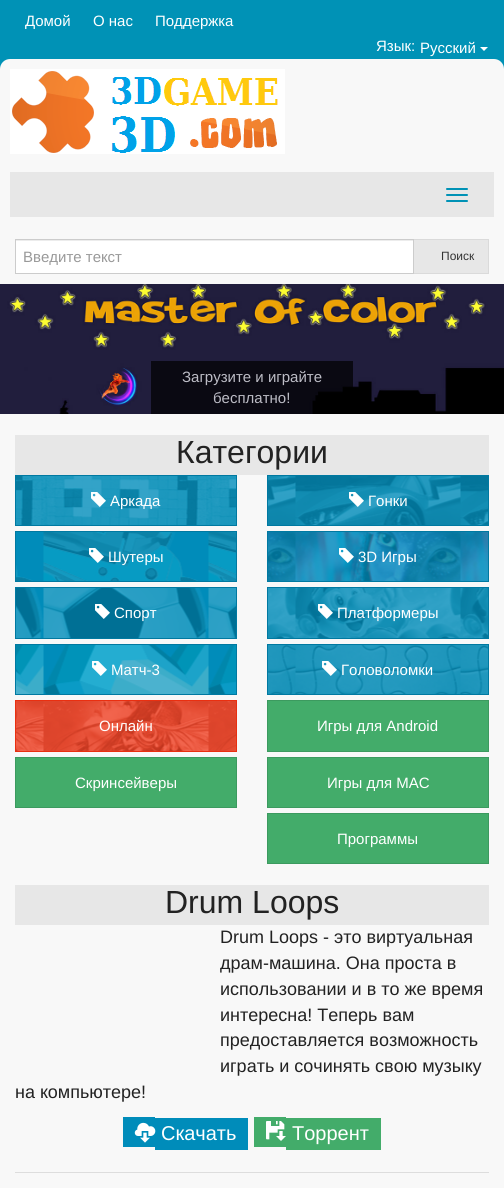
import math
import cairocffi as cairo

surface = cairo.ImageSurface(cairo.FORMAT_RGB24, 504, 1188)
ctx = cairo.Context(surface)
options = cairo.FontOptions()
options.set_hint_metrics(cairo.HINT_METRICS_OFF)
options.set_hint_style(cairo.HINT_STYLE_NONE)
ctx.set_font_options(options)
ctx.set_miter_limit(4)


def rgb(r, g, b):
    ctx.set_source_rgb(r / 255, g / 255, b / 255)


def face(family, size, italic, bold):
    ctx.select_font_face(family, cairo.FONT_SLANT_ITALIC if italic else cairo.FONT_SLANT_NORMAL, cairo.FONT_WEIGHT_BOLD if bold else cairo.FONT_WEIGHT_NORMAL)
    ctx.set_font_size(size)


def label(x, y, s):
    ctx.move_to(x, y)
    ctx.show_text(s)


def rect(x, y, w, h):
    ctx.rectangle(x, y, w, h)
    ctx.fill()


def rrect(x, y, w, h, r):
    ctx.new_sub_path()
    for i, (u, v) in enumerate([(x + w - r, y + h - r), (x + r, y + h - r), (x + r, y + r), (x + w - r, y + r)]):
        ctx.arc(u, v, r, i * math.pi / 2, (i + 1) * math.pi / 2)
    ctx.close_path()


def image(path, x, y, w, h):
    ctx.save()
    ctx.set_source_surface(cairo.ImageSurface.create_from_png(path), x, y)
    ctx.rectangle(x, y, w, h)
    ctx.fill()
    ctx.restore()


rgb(0, 146, 182)
ctx.paint()
face('Liberation Sans', 15, 0, 0)
rgb(255, 255, 255)
label(25, 26, 'Домой')
label(93, 26, 'О нас')
label(155, 26, 'Поддержка')
label(376, 51, 'Язык:')
label(420, 53, 'Русский')
ctx.new_path()
ctx.move_to(480, 47)
ctx.line_to(488, 47)
ctx.line_to(484, 51)
ctx.close_path()
ctx.fill()
rgb(248, 248, 248)
ctx.new_path()
ctx.move_to(10, 59)
ctx.line_to(494, 59)
ctx.curve_to(499.5, 59, 504, 63.5, 504, 69)
ctx.line_to(504, 284)
ctx.line_to(0, 284)
ctx.line_to(0, 69)
ctx.curve_to(0, 63.5, 4.5, 59, 10, 59)
ctx.close_path()
ctx.fill()
image('image0.png', 10, 69, 275, 85)
rgb(231, 231, 231)
rect(10, 172, 484, 45)
rgb(0, 146, 182)
rrect(446, 188, 22, 2, 1)
ctx.fill()
rrect(446, 194, 22, 2, 1)
ctx.fill()
rrect(446, 200, 22, 2, 1)
ctx.fill()
rgb(255, 255, 255)
rect(16, 241, 397, 32)
rgb(236, 236, 236)
rect(16, 240, 397, 1)
rgb(231, 231, 231)
ctx.rectangle(413.5, 239.5, 75, 34)
ctx.fill_preserve()
rgb(218, 218, 218)
ctx.set_line_width(1)
ctx.stroke()
ctx.rectangle(15.5, 239.5, 398, 34)
rgb(204, 204, 204)
ctx.stroke()
rgb(153, 153, 153)
label(23, 262, 'Введите текст')
face('Liberation Sans', 12, 0, 0)
rgb(51, 51, 51)
label(441, 260, 'Поиск')
image('image1.png', 0, 284, 504, 130)
ctx.set_source_rgba(0, 0, 0, 0.7)
rect(151, 361, 202, 53)
face('Liberation Sans', 15, 0, 0)
rgb(188, 188, 197)
label(182, 382, 'Загрузите и играйте')
label(213, 403, 'бесплатно!')
rgb(248, 248, 248)
rect(0, 414, 504, 774)
rgb(231, 231, 231)
rect(15, 435, 474, 40)
face('Liberation Sans', 32, 0, 0)
rgb(34, 34, 34)
label(176, 463, 'Категории')
rgb(0, 140, 186)
rect(16, 476, 220, 49)
image('image2.png', 16, 476, 220, 49)
ctx.rectangle(15.5, 475.5, 221, 50)
rgb(0, 121, 161)
ctx.stroke()
image('image3.png', 91, 492, 15, 15)
face('Liberation Sans', 15, 0, 0)
rgb(255, 255, 255)
label(110, 506, 'Аркада')
rgb(0, 140, 186)
rect(16, 532, 220, 49)
image('image4.png', 16, 532, 220, 49)
ctx.rectangle(15.5, 531.5, 221, 50)
rgb(0, 121, 161)
ctx.stroke()
image('image5.png', 89, 548, 15, 15)
rgb(255, 255, 255)
label(108, 562, 'Шутеры')
rgb(0, 140, 186)
rect(16, 588, 220, 50)
image('image6.png', 16, 588, 220, 50)
ctx.rectangle(15.5, 587.5, 221, 51)
rgb(0, 121, 161)
ctx.stroke()
image('image7.png', 95, 604, 15, 15)
rgb(255, 255, 255)
label(114, 618, 'Спорт')
rgb(0, 140, 186)
rect(16, 645, 220, 49)
image('image8.png', 16, 645, 220, 49)
ctx.rectangle(15.5, 644.5, 221, 50)
rgb(0, 121, 161)
ctx.stroke()
image('image9.png', 92, 661, 15, 15)
rgb(255, 255, 255)
label(111, 675, 'Матч-3')
rgb(240, 65, 36)
rect(16, 701, 220, 50)
image('image10.png', 16, 701, 220, 50)
ctx.rectangle(15.5, 700.5, 221, 51)
rgb(234, 47, 16)
ctx.stroke()
rgb(255, 255, 255)
label(99, 731, 'Онлайн')
rgb(67, 172, 106)
ctx.rectangle(15.5, 757.5, 221, 50)
ctx.fill_preserve()
rgb(60, 154, 95)
ctx.stroke()
rgb(255, 255, 255)
label(75, 788, 'Скринсейверы')
rgb(0, 140, 186)
rect(268, 476, 220, 49)
image('image11.png', 268, 476, 220, 49)
ctx.rectangle(267.5, 475.5, 221, 50)
rgb(0, 121, 161)
ctx.stroke()
image('image12.png', 349, 492, 15, 15)
rgb(255, 255, 255)
label(368, 506, 'Гонки')
rgb(0, 140, 186)
rect(268, 532, 220, 49)
image('image13.png', 268, 532, 220, 49)
ctx.rectangle(267.5, 531.5, 221, 50)
rgb(0, 121, 161)
ctx.stroke()
image('image14.png', 339, 548, 15, 15)
rgb(255, 255, 255)
label(358, 562, '3D Игры')
rgb(0, 140, 186)
rect(268, 588, 220, 50)
image('image15.png', 268, 588, 220, 50)
ctx.rectangle(267.5, 587.5, 221, 51)
rgb(0, 121, 161)
ctx.stroke()
image('image16.png', 318, 604, 15, 15)
rgb(255, 255, 255)
label(337, 618, 'Платформеры')
rgb(0, 140, 186)
rect(268, 645, 220, 49)
image('image17.png', 268, 645, 220, 49)
ctx.rectangle(267.5, 644.5, 221, 50)
rgb(0, 121, 161)
ctx.stroke()
image('image18.png', 322, 661, 15, 15)
rgb(255, 255, 255)
label(341, 675, 'Головоломки')
rgb(67, 172, 106)
ctx.rectangle(267.5, 700.5, 221, 51)
ctx.fill_preserve()
rgb(60, 154, 95)
ctx.stroke()
rgb(255, 255, 255)
label(317, 731, 'Игры для Android')
rgb(67, 172, 106)
ctx.rectangle(267.5, 757.5, 221, 50)
ctx.fill_preserve()
rgb(60, 154, 95)
ctx.stroke()
rgb(255, 255, 255)
label(327, 788, 'Игры для MAC')
rgb(67, 172, 106)
ctx.rectangle(267.5, 813.5, 221, 50)
ctx.fill_preserve()
rgb(60, 154, 95)
ctx.stroke()
rgb(255, 255, 255)
label(337, 844, 'Программы')
rgb(231, 231, 231)
rect(15, 885, 474, 40)
face('Liberation Sans', 32, 0, 0)
rgb(34, 34, 34)
label(165, 913, 'Drum Loops')
face('Liberation Sans', 18, 0, 0)
label(220, 943, 'Drum Loops - это виртуальная')
label(220, 969, 'драм-машина. Она проста в')
label(220, 995, 'использовании и в то же время')
label(220, 1021, 'интересна! Теперь вам')
label(220, 1046, 'предоставляется возможность')
label(220, 1072, 'играть и сочинять свою музыку')
label(15, 1098, 'на компьютере!')
rgb(0, 140, 186)
rect(123, 1117, 32, 30)
rect(155, 1118, 93, 32)
image('image19.png', 134, 1122, 22, 21)
face('Liberation Sans', 20, 0, 0)
rgb(255, 255, 255)
label(161, 1140, 'Скачать')
rgb(67, 172, 106)
rect(254, 1117, 32, 30)
rect(286, 1118, 95, 32)
image('image20.png', 266, 1121, 20, 20)
rgb(255, 255, 255)
label(292, 1140, 'Торрент')
rgb(221, 221, 221)
rect(15, 1172, 474, 1)
surface.write_to_png('render.png')
